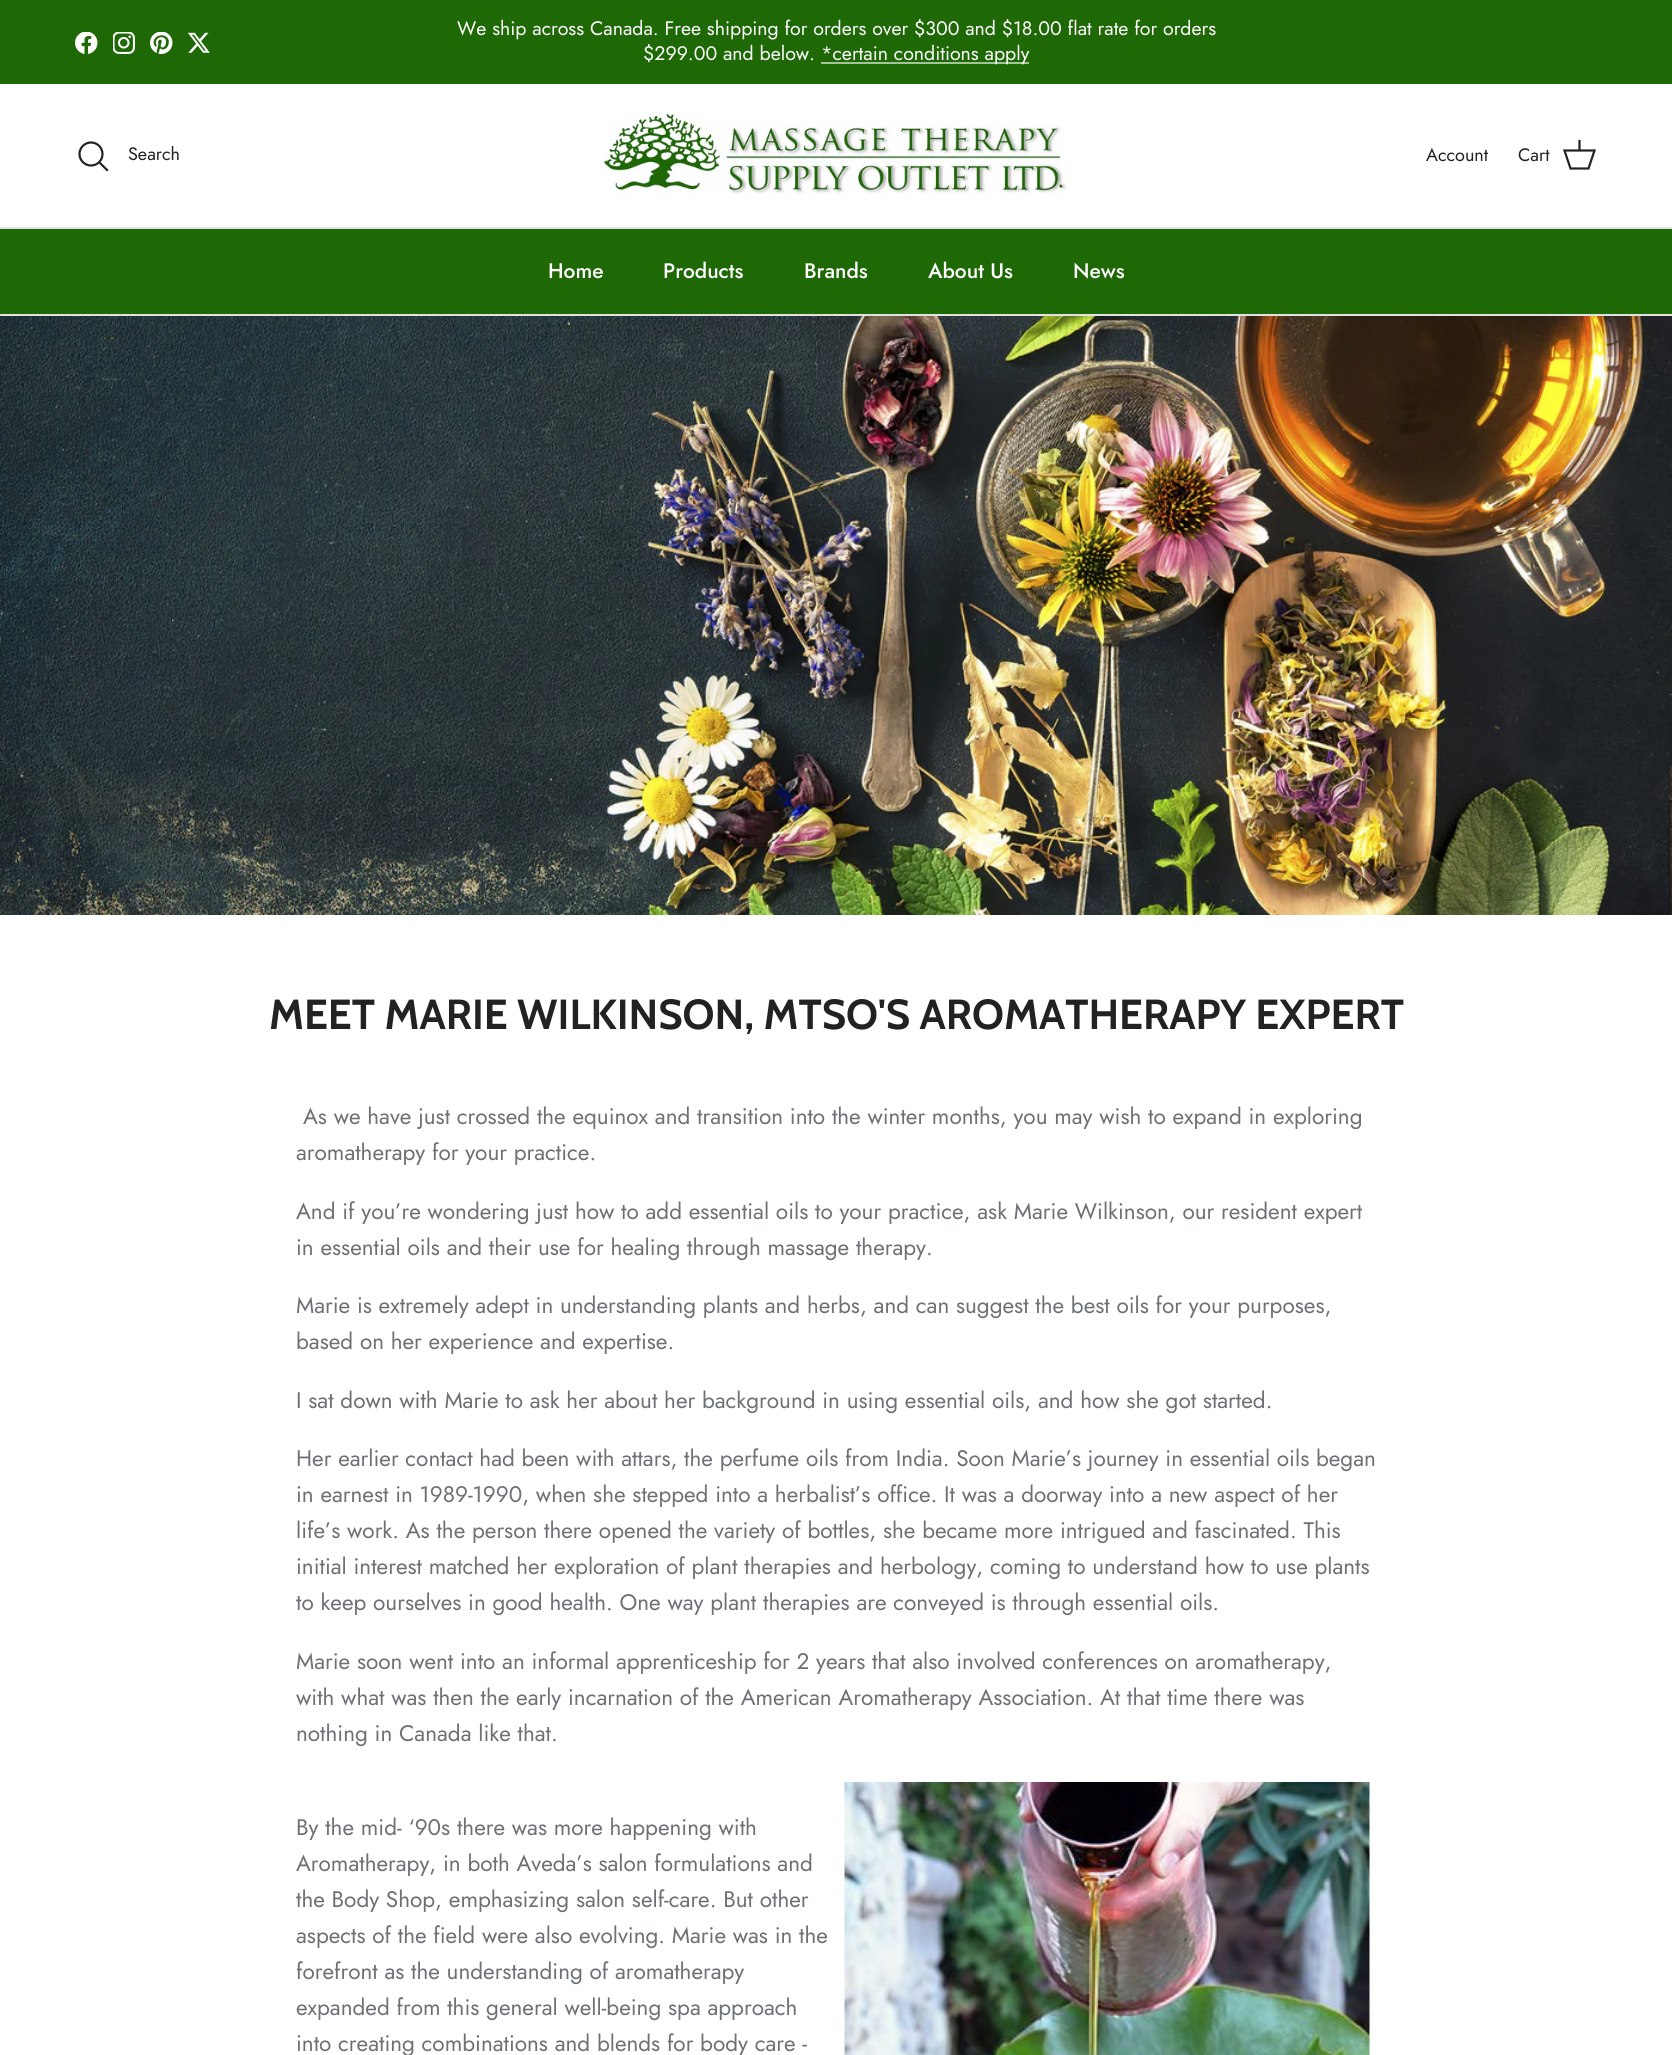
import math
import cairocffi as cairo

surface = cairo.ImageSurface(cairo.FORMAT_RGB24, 1672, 2055)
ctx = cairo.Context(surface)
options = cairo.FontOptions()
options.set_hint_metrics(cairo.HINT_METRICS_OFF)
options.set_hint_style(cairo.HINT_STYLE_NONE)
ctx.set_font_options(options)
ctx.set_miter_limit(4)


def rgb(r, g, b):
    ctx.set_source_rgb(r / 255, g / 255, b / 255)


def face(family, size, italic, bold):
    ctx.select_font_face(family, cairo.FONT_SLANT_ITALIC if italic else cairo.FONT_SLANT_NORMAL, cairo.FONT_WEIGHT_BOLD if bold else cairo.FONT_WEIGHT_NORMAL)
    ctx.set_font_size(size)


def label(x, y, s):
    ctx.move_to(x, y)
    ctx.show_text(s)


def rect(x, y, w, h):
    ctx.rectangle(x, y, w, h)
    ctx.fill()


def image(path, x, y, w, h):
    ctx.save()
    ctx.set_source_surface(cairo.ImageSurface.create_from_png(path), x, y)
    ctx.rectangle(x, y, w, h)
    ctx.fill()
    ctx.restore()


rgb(255, 255, 255)
ctx.paint()
rgb(30, 104, 6)
rect(0, 0, 1672, 84)
image('image0.png', 75, 32, 23, 22)
image('image1.png', 113, 32, 22, 22)
image('image2.png', 150, 32, 23, 22)
image('image3.png', 188, 32, 22, 21)
face('Jost', 19.5, 0, 0)
rgb(255, 255, 255)
label(457, 35, 'We ship across Canada. Free shipping for orders over $300 and $18.00 flat rate for orders')
label(643, 60, '$299.00 and below.')
rgb(165, 195, 155)
rect(821, 62, 208, 2)
rgb(255, 255, 255)
label(821, 60, '*certain conditions apply')
rgb(226, 226, 226)
rect(0, 227, 1672, 2)
ctx.new_path()
ctx.arc(91, 154, 11.5, 0, 2 * math.pi)
rgb(32, 34, 35)
ctx.set_line_width(2.2)
ctx.stroke()
face('Jost', 18, 0, 0)
label(128, 160, 'Search')
ctx.new_path()
ctx.move_to(100.5, 163.5)
ctx.line_to(107, 170)
ctx.set_line_cap(cairo.LINE_CAP_SQUARE)
ctx.stroke()
image('image4.png', 604, 114, 463, 80)
label(1426, 161, 'Account')
label(1518, 161, 'Cart')
ctx.new_path()
ctx.move_to(1564.5, 150.5)
ctx.line_to(1594.5, 150.5)
ctx.line_to(1588.5, 168.5)
ctx.line_to(1570.5, 168.5)
ctx.close_path()
ctx.set_line_cap(cairo.LINE_CAP_BUTT)
ctx.stroke()
ctx.new_path()
ctx.move_to(1579.5, 150)
ctx.line_to(1579.5, 141)
ctx.set_line_cap(cairo.LINE_CAP_SQUARE)
ctx.stroke()
rgb(226, 226, 226)
rect(0, 314, 1672, 2)
rgb(30, 104, 6)
rect(0, 229, 1672, 85)
face('Jost Medium', 21, 0, 0)
rgb(255, 255, 255)
label(548, 278, 'Home')
label(663, 278, 'Products')
label(804, 278, 'Brands')
label(928, 278, 'About Us')
label(1073, 278, 'News')
image('image5.png', 0, 316, 1672, 599)
face('Cabin', 42, 0, 1)
rgb(32, 34, 35)
label(269, 1029, 'MEET MARIE WILKINSON, MTSO\'S AROMATHERAPY EXPERT')
face('Jost', 22.5, 0, 0)
rgb(109, 113, 117)
label(303, 1124, 'As we have just crossed the equinox and transition into the winter months, you may wish to expand in exploring')
label(296, 1160, 'aromatherapy for your practice.')
label(296, 1219, 'And if you’re wondering just how to add essential oils to your practice, ask Marie Wilkinson, our resident expert')
label(296, 1255, 'in essential oils and their use for healing through massage therapy.')
label(296, 1313, 'Marie is extremely adept in understanding plants and herbs, and can suggest the best oils for your purposes,')
label(296, 1349, 'based on her experience and expertise.')
label(296, 1408, 'I sat down with Marie to ask her about her background in using essential oils, and how she got started.')
label(296, 1466, 'Her earlier contact had been with attars, the perfume oils from India. Soon Marie’s journey in essential oils began')
label(296, 1502, 'in earnest in 1989-1990, when she stepped into a herbalist’s office. It was a doorway into a new aspect of her')
label(296, 1538, 'life’s work. As the person there opened the variety of bottles, she became more intrigued and fascinated. This')
label(296, 1574, 'initial interest matched her exploration of plant therapies and herbology, coming to understand how to use plants')
label(296, 1610, 'to keep ourselves in good health. One way plant therapies are conveyed is through essential oils.')
label(296, 1669, 'Marie soon went into an informal apprenticeship for 2 years that also involved conferences on aromatherapy,')
label(296, 1705, 'with what was then the early incarnation of the American Aromatherapy Association. At that time there was')
label(296, 1741, 'nothing in Canada like that.')
label(296, 1835, 'By the mid- ‘90s there was more happening with')
image('image6.png', 844, 1782, 526, 273)
label(296, 1871, 'Aromatherapy, in both Aveda’s salon formulations and')
label(296, 1907, 'the Body Shop, emphasizing salon self-care. But other')
label(296, 1943, 'aspects of the field were also evolving. Marie was in the')
label(296, 1979, 'forefront as the understanding of aromatherapy')
label(296, 2015, 'expanded from this general well-being spa approach')
label(296, 2051, 'into creating combinations and blends for body care -')
surface.write_to_png('render.png')
